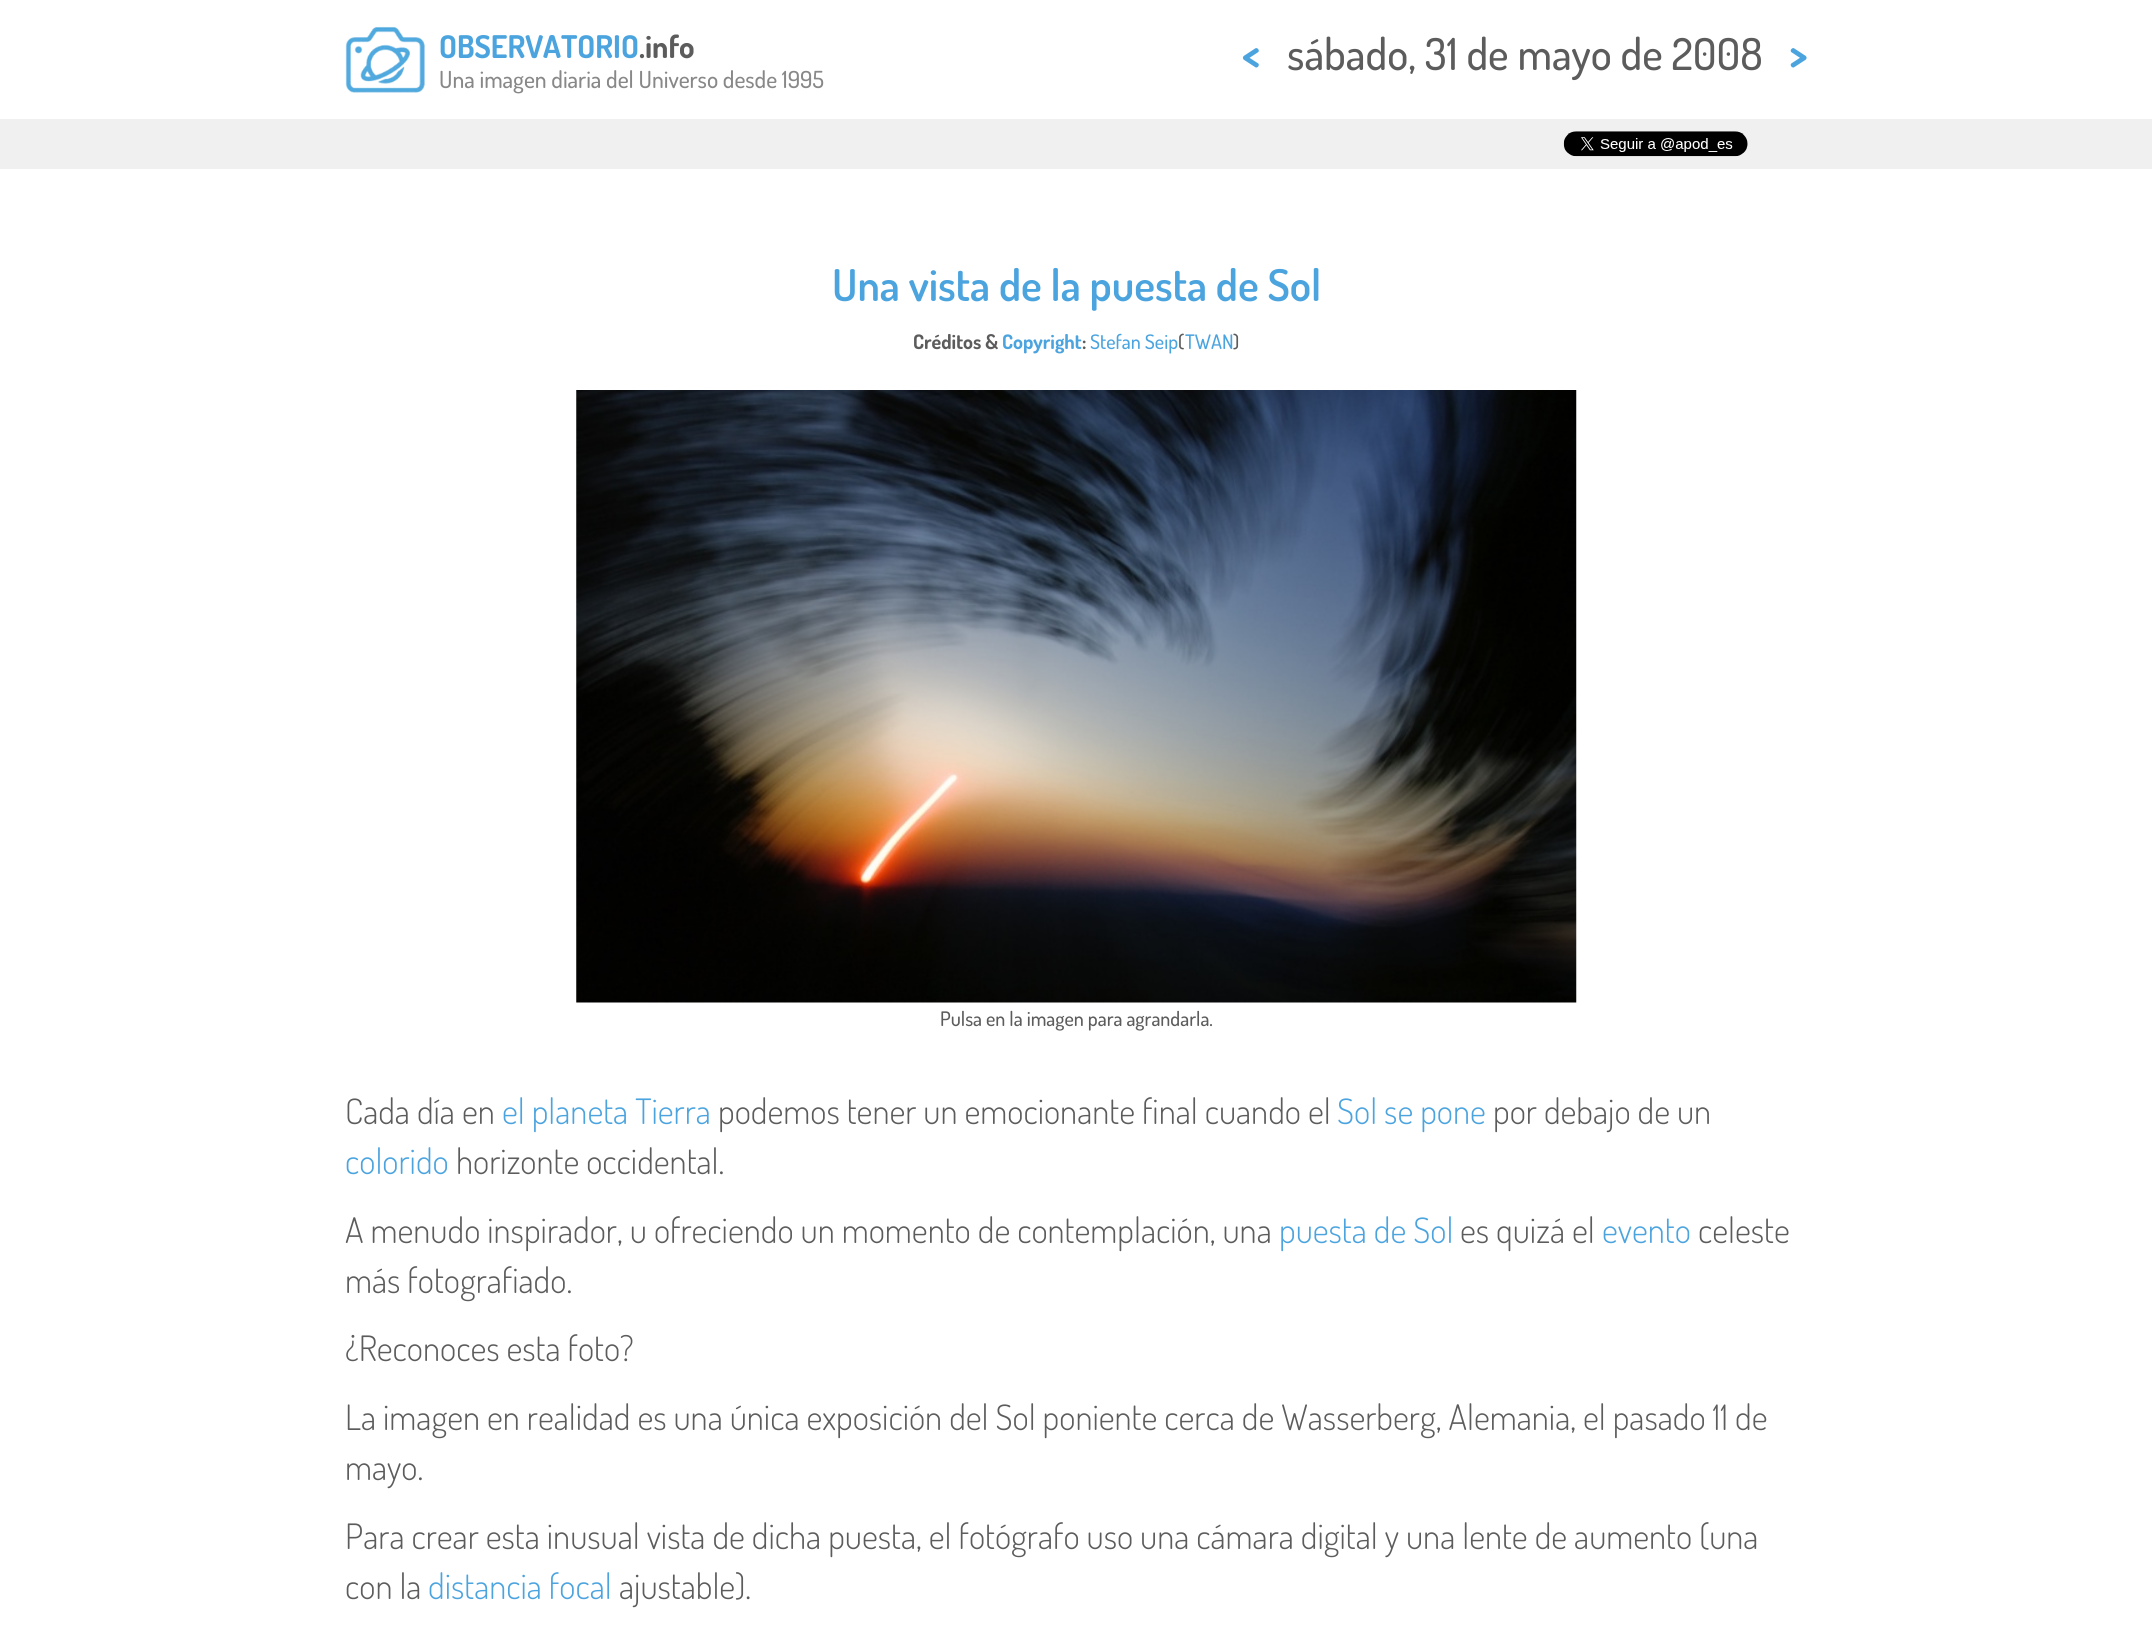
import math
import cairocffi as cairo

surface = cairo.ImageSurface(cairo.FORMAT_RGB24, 2152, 1650)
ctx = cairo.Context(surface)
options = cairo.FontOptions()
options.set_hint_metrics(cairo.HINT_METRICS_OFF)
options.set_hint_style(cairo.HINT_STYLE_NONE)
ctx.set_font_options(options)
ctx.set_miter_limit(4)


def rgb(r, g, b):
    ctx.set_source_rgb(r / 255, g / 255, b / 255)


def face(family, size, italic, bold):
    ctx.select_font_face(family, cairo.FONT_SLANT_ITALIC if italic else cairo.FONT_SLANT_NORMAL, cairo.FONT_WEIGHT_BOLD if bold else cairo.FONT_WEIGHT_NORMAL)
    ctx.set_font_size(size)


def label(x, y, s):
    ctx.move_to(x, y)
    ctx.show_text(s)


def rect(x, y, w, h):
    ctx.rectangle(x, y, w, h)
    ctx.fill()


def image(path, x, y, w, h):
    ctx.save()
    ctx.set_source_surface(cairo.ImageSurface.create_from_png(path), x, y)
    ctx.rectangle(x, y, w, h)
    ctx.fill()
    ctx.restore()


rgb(255, 255, 255)
ctx.paint()
image('image0.png', 345, 26, 80, 67)
face('Dosis', 31.25, 0, 1)
rgb(76, 164, 223)
label(439, 58, 'OBSERVATORIO')
rgb(92, 92, 92)
label(639, 58, '.info')
face('Dosis Medium', 23.5, 0, 0)
rgb(136, 136, 136)
label(439, 88, 'Una imagen diaria del Universo desde 1995')
face('Dosis', 44, 0, 1)
rgb(76, 164, 223)
label(1242, 70, '<')
face('Dosis Medium', 44, 0, 0)
rgb(92, 92, 92)
label(1287, 70, 'sábado, 31 de mayo de 2008')
face('Dosis', 44, 0, 1)
rgb(76, 164, 223)
label(1789, 70, '>')
rgb(240, 240, 240)
rect(0, 119, 2152, 50)
image('image1.png', 1563, 131, 185, 26)
face('Dosis SemiBold', 43.75, 0, 0)
rgb(76, 164, 223)
label(832, 301, 'Una vista de la puesta de Sol')
face('Dosis', 20, 0, 1)
rgb(92, 92, 92)
label(913, 349, 'Créditos &')
rgb(76, 164, 223)
label(1002, 349, 'Copyright')
rgb(92, 92, 92)
label(1082, 349, ':')
face('Dosis Medium', 20, 0, 0)
rgb(76, 164, 223)
label(1090, 349, 'Stefan Seip')
rgb(92, 92, 92)
label(1178, 349, '(')
rgb(76, 164, 223)
label(1185, 349, 'TWAN')
rgb(92, 92, 92)
label(1233, 349, ')')
image('image2.png', 576, 390, 1001, 613)
label(940, 1026, 'Pulsa en la imagen para agrandarla.')
face('Dosis Light', 35, 0, 0)
label(345, 1124, 'Cada día en')
rgb(76, 164, 223)
label(502, 1124, 'el planeta Tierra')
rgb(92, 92, 92)
label(718, 1124, 'podemos tener un emocionante final cuando el')
rgb(76, 164, 223)
label(1337, 1124, 'Sol se pone')
rgb(92, 92, 92)
label(1493, 1124, 'por debajo de un')
rgb(76, 164, 223)
label(345, 1174, 'colorido')
rgb(92, 92, 92)
label(456, 1174, 'horizonte occidental.')
label(345, 1243, 'A menudo inspirador, u ofreciendo un momento de contemplación, una')
rgb(76, 164, 223)
label(1279, 1243, 'puesta de Sol')
rgb(92, 92, 92)
label(1460, 1243, 'es quizá el')
rgb(76, 164, 223)
label(1602, 1243, 'evento')
rgb(92, 92, 92)
label(1698, 1243, 'celeste')
label(345, 1293, 'más fotografiado.')
label(345, 1361, '¿Reconoces esta foto?')
label(345, 1430, 'La imagen en realidad es una única exposición del Sol poniente cerca de Wasserberg, Alemania, el pasado 11 de')
label(345, 1480, 'mayo.')
label(345, 1549, 'Para crear esta inusual vista de dicha puesta, el fotógrafo uso una cámara digital y una lente de aumento (una')
label(345, 1599, 'con la')
rgb(76, 164, 223)
label(428, 1599, 'distancia focal')
rgb(92, 92, 92)
label(619, 1599, 'ajustable).')
surface.write_to_png('render.png')
